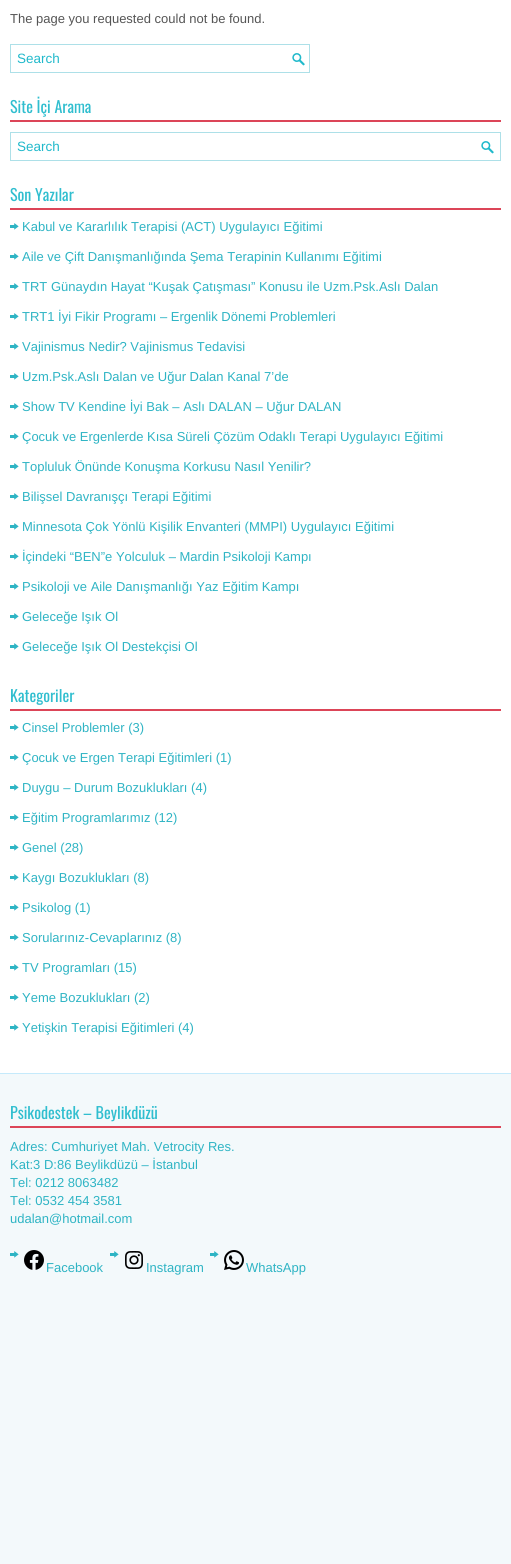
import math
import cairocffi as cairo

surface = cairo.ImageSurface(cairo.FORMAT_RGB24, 511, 1564)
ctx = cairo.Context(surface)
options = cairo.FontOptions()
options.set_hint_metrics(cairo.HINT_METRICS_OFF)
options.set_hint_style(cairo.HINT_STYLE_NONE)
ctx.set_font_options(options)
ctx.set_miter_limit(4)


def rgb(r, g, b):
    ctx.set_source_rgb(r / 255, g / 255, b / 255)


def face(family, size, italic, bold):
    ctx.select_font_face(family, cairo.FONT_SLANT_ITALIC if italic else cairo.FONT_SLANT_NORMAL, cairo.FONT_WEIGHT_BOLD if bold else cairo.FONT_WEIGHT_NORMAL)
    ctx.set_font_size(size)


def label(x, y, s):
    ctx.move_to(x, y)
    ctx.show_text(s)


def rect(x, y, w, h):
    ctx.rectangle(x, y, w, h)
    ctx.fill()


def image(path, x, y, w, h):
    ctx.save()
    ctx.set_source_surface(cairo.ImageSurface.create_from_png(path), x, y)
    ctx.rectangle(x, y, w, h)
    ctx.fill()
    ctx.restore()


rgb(255, 255, 255)
ctx.paint()
face('Liberation Sans', 13, 0, 0)
rgb(85, 85, 85)
label(10, 23, 'The page you requested could not be found.')
image('image0.png', 292, 53, 13, 13)
ctx.rectangle(10.5, 44.5, 299, 28)
rgb(173, 224, 232)
ctx.set_line_width(1)
ctx.stroke()
face('Liberation Sans', 13.5, 0, 0)
rgb(32, 185, 203)
label(17, 63, 'Search')
rgb(220, 69, 88)
rect(10, 120, 491, 2)
face('Oswald', 16, 0, 0)
rgb(48, 190, 207)
label(10, 113, 'Site İçi Arama')
image('image0.png', 481, 141, 13, 13)
ctx.rectangle(10.5, 132.5, 490, 28)
rgb(173, 224, 232)
ctx.stroke()
face('Liberation Sans', 13.5, 0, 0)
rgb(32, 185, 203)
label(17, 151, 'Search')
rgb(220, 69, 88)
rect(10, 208, 491, 2)
face('Oswald', 16, 0, 0)
rgb(48, 190, 207)
label(10, 201, 'Son Yazılar')
image('image1.png', 10, 223, 9, 7)
face('Liberation Sans', 13, 0, 0)
rgb(46, 180, 196)
label(22, 231, 'Kabul ve Kararlılık Terapisi (ACT) Uygulayıcı Eğitimi')
image('image1.png', 10, 253, 9, 7)
label(22, 261, 'Aile ve Çift Danışmanlığında Şema Terapinin Kullanımı Eğitimi')
image('image1.png', 10, 283, 9, 7)
label(22, 291, 'TRT Günaydın Hayat “Kuşak Çatışması” Konusu ile Uzm.Psk.Aslı Dalan')
image('image1.png', 10, 313, 9, 7)
label(22, 321, 'TRT1 İyi Fikir Programı – Ergenlik Dönemi Problemleri')
image('image1.png', 10, 343, 9, 7)
label(22, 351, 'Vajinismus Nedir? Vajinismus Tedavisi')
image('image1.png', 10, 373, 9, 7)
label(22, 381, 'Uzm.Psk.Aslı Dalan ve Uğur Dalan Kanal 7’de')
image('image1.png', 10, 403, 9, 7)
label(22, 411, 'Show TV Kendine İyi Bak – Aslı DALAN – Uğur DALAN')
image('image1.png', 10, 433, 9, 7)
label(22, 441, 'Çocuk ve Ergenlerde Kısa Süreli Çözüm Odaklı Terapi Uygulayıcı Eğitimi')
image('image1.png', 10, 463, 9, 7)
label(22, 471, 'Topluluk Önünde Konuşma Korkusu Nasıl Yenilir?')
image('image1.png', 10, 493, 9, 7)
label(22, 501, 'Bilişsel Davranışçı Terapi Eğitimi')
image('image1.png', 10, 523, 9, 7)
label(22, 531, 'Minnesota Çok Yönlü Kişilik Envanteri (MMPI) Uygulayıcı Eğitimi')
image('image1.png', 10, 553, 9, 7)
label(22, 561, 'İçindeki “BEN”e Yolculuk – Mardin Psikoloji Kampı')
image('image1.png', 10, 583, 9, 7)
label(22, 591, 'Psikoloji ve Aile Danışmanlığı Yaz Eğitim Kampı')
image('image1.png', 10, 613, 9, 7)
label(22, 621, 'Geleceğe Işık Ol')
image('image1.png', 10, 643, 9, 7)
label(22, 651, 'Geleceğe Işık Ol Destekçisi Ol')
rgb(220, 69, 88)
rect(10, 709, 491, 2)
face('Oswald', 16, 0, 0)
rgb(48, 190, 207)
label(10, 702, 'Kategoriler')
image('image1.png', 10, 724, 9, 7)
face('Liberation Sans', 13, 0, 0)
rgb(46, 180, 196)
label(22, 732, 'Cinsel Problemler (3)')
image('image1.png', 10, 754, 9, 7)
label(22, 762, 'Çocuk ve Ergen Terapi Eğitimleri (1)')
image('image1.png', 10, 784, 9, 7)
label(22, 792, 'Duygu – Durum Bozuklukları (4)')
image('image1.png', 10, 814, 9, 7)
label(22, 822, 'Eğitim Programlarımız (12)')
image('image1.png', 10, 844, 9, 7)
label(22, 852, 'Genel (28)')
image('image1.png', 10, 874, 9, 7)
label(22, 882, 'Kaygı Bozuklukları (8)')
image('image1.png', 10, 904, 9, 7)
label(22, 912, 'Psikolog (1)')
image('image1.png', 10, 934, 9, 7)
label(22, 942, 'Sorularınız-Cevaplarınız (8)')
image('image1.png', 10, 964, 9, 7)
label(22, 972, 'TV Programları (15)')
image('image1.png', 10, 994, 9, 7)
label(22, 1002, 'Yeme Bozuklukları (2)')
image('image1.png', 10, 1024, 9, 7)
label(22, 1032, 'Yetişkin Terapisi Eğitimleri (4)')
rgb(243, 249, 251)
rect(0, 1074, 511, 490)
rgb(197, 234, 251)
rect(0, 1073, 511, 1)
rgb(220, 69, 88)
rect(10, 1126, 491, 2)
face('Oswald', 16, 0, 0)
rgb(48, 190, 207)
label(10, 1119, 'Psikodestek – Beylikdüzü')
face('Liberation Sans', 13, 0, 0)
rgb(46, 180, 196)
label(10, 1151, 'Adres: Cumhuriyet Mah. Vetrocity Res.')
label(10, 1169, 'Kat:3 D:86 Beylikdüzü – İstanbul')
label(10, 1187, 'Tel: 0212 8063482')
label(10, 1205, 'Tel: 0532 454 3581')
label(10, 1223, 'udalan@hotmail.com')
image('image2.png', 10, 1251, 9, 7)
image('image3.png', 24, 1250, 20, 20)
label(46, 1272, 'Facebook')
image('image2.png', 110, 1251, 9, 7)
image('image4.png', 125, 1251, 18, 18)
label(146, 1272, 'Instagram')
image('image2.png', 210, 1251, 9, 7)
image('image5.png', 224, 1250, 20, 20)
label(246, 1272, 'WhatsApp')
surface.write_to_png('render.png')
